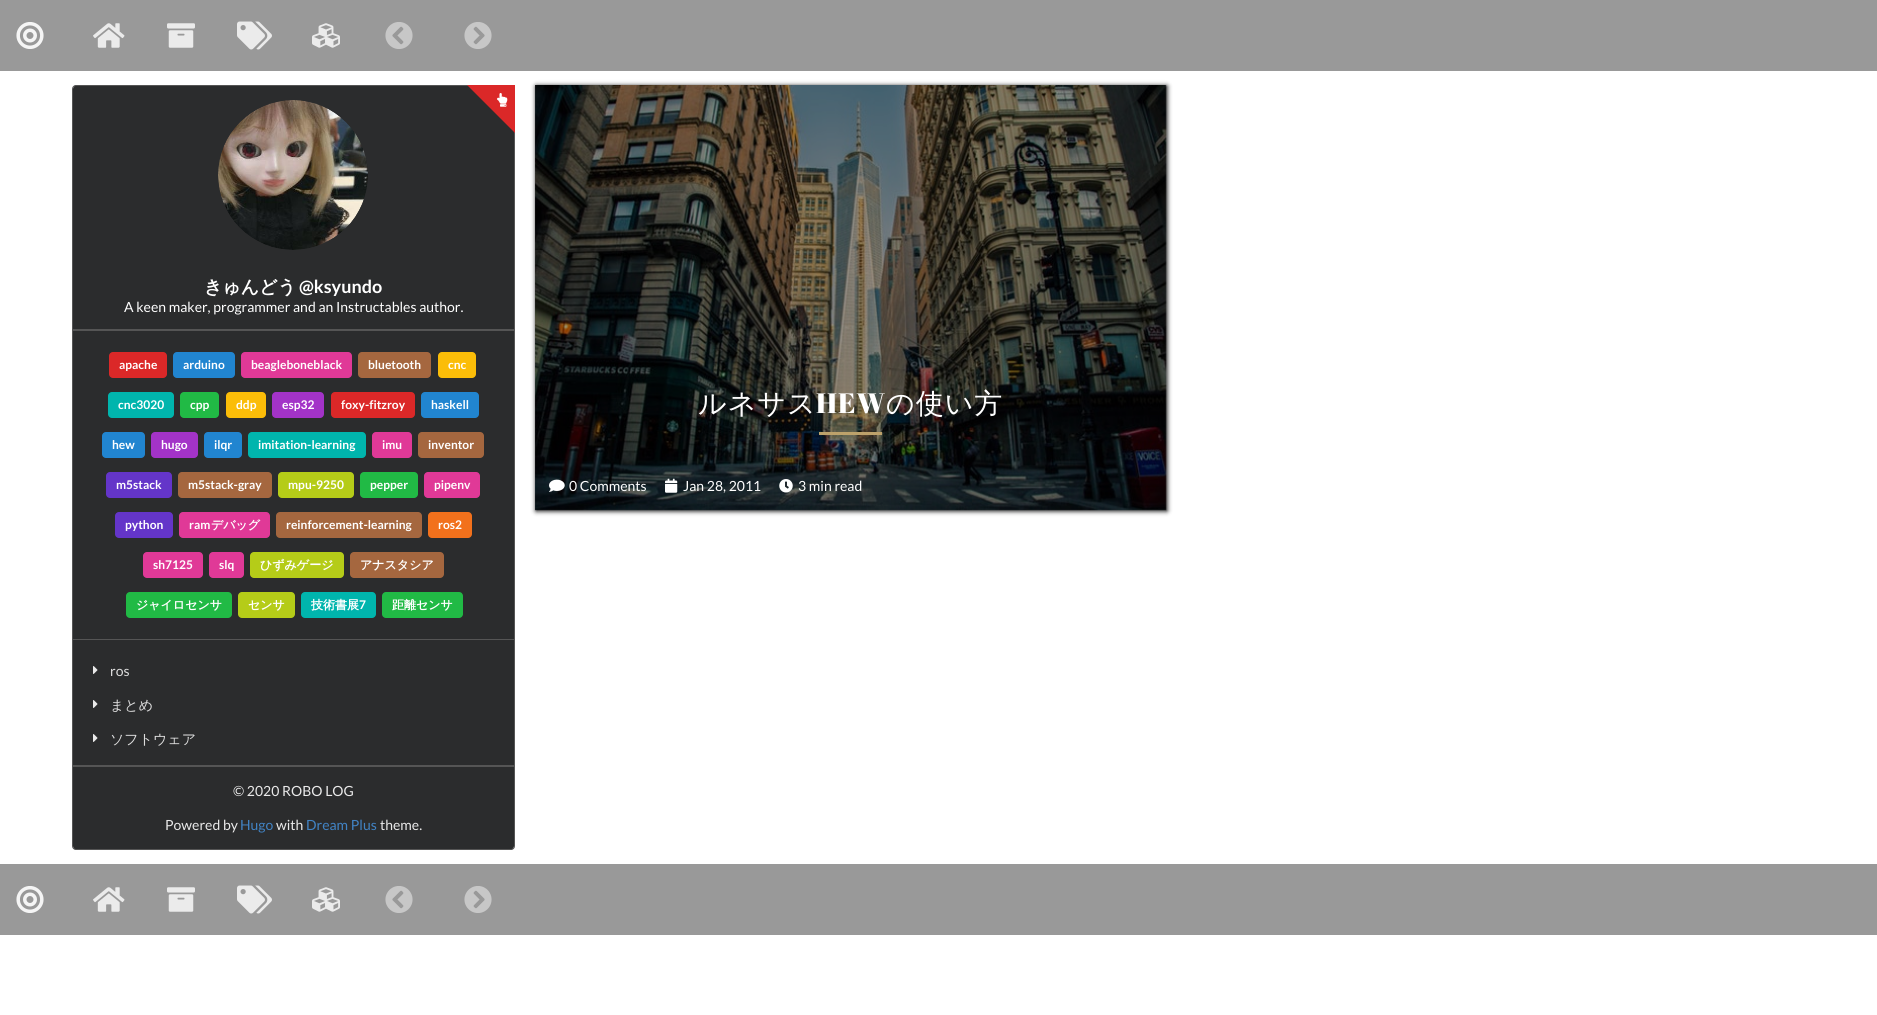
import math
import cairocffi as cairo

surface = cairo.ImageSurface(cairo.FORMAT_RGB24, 1877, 1015)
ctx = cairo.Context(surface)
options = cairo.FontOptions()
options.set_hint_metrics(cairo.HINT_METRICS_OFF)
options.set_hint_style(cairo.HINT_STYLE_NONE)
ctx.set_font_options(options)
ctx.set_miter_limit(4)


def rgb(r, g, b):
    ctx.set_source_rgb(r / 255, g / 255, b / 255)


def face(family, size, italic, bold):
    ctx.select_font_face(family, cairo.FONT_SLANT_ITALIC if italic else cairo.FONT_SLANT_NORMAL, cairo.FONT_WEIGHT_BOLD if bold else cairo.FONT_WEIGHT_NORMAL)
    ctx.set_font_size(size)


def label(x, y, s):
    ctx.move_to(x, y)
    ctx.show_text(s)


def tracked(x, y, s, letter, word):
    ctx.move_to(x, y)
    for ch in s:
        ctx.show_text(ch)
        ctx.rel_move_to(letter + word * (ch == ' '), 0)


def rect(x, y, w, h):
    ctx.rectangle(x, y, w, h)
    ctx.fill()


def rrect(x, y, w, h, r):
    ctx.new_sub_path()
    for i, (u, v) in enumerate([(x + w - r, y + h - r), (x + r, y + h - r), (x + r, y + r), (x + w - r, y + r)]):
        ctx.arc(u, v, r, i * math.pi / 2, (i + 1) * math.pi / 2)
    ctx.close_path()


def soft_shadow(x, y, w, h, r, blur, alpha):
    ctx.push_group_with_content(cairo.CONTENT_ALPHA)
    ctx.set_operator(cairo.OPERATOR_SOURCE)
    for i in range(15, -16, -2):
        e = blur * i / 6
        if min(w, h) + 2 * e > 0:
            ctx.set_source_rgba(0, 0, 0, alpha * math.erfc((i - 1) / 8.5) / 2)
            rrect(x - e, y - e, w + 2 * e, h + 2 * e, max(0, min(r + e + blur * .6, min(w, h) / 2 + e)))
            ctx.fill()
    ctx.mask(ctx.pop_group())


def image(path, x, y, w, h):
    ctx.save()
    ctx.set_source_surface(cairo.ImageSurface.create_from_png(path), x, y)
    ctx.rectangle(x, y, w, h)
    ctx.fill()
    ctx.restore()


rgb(255, 255, 255)
ctx.paint()
rgb(153, 153, 153)
rect(0, 0, 1877, 71)
image('image0.png', 16, 22, 28, 27)
image('image1.png', 93, 23, 32, 25)
image('image2.png', 167, 23, 28, 25)
image('image3.png', 237, 21, 35, 29)
image('image4.png', 312, 23, 28, 25)
image('image5.png', 385, 22, 28, 27)
image('image6.png', 464, 22, 28, 27)
rgb(43, 44, 45)
rrect(73, 85, 441, 765, 4)
ctx.fill()
ctx.new_path()
ctx.move_to(76, 85.5)
ctx.line_to(511, 85.5)
ctx.curve_to(513, 85.5, 514.5, 87, 514.5, 89)
ctx.line_to(514.5, 329.5)
ctx.line_to(72.5, 329.5)
ctx.line_to(72.5, 89)
ctx.curve_to(72.5, 87, 74, 85.5, 76, 85.5)
ctx.close_path()
rgb(85, 85, 85)
ctx.set_line_width(1)
ctx.stroke()
rgb(219, 40, 40)
ctx.new_path()
ctx.move_to(515, 85)
ctx.line_to(515, 133)
ctx.line_to(467, 85)
ctx.close_path()
ctx.fill()
image('image7.png', 497, 93, 11, 14)
image('image8.png', 218, 100, 150, 150)
face('WenQuanYi Zen Hei', 18, 0, 1)
rgb(255, 255, 255)
label(204, 293, 'きゅんどう')
face('Lato', 18, 0, 1)
label(299, 293, '@ksyundo')
face('Lato', 14, 0, 0)
label(124, 312, 'A keen maker, programmer and an Instructables author.')
ctx.rectangle(72.5, 330.5, 442, 309)
rgb(85, 85, 85)
ctx.stroke()
rgb(219, 40, 40)
rrect(109, 352, 58, 26, 4)
ctx.fill()
face('Lato', 12, 0, 1)
rgb(255, 255, 255)
label(119, 369, 'apache')
rgb(33, 133, 208)
rrect(173, 352, 62, 26, 4)
ctx.fill()
rgb(255, 255, 255)
label(183, 369, 'arduino')
rgb(224, 57, 151)
rrect(241, 352, 111, 26, 4)
ctx.fill()
rgb(255, 255, 255)
label(251, 369, 'beagleboneblack')
rgb(165, 103, 63)
rrect(358, 352, 73, 26, 4)
ctx.fill()
rgb(255, 255, 255)
label(368, 369, 'bluetooth')
rgb(251, 189, 8)
rrect(438, 352, 38, 26, 4)
ctx.fill()
rgb(255, 255, 255)
label(448, 369, 'cnc')
rgb(0, 181, 173)
rrect(108, 392, 66, 26, 4)
ctx.fill()
rgb(255, 255, 255)
label(118, 409, 'cnc3020')
rgb(33, 186, 69)
rrect(180, 392, 39, 26, 4)
ctx.fill()
rgb(255, 255, 255)
label(190, 409, 'cpp')
rgb(251, 189, 8)
rrect(226, 392, 40, 26, 4)
ctx.fill()
rgb(255, 255, 255)
label(236, 409, 'ddp')
rgb(163, 51, 200)
rrect(272, 392, 52, 26, 4)
ctx.fill()
rgb(255, 255, 255)
label(282, 409, 'esp32')
rgb(219, 40, 40)
rrect(331, 392, 84, 26, 4)
ctx.fill()
rgb(255, 255, 255)
label(341, 409, 'foxy-fitzroy')
rgb(33, 133, 208)
rrect(421, 392, 58, 26, 4)
ctx.fill()
rgb(255, 255, 255)
label(431, 409, 'haskell')
rgb(33, 133, 208)
rrect(102, 432, 43, 26, 4)
ctx.fill()
rgb(255, 255, 255)
label(112, 449, 'hew')
rgb(163, 51, 200)
rrect(151, 432, 47, 26, 4)
ctx.fill()
rgb(255, 255, 255)
label(161, 449, 'hugo')
rgb(33, 133, 208)
rrect(204, 432, 38, 26, 4)
ctx.fill()
rgb(255, 255, 255)
label(214, 449, 'ilqr')
rgb(0, 181, 173)
rrect(248, 432, 118, 26, 4)
ctx.fill()
rgb(255, 255, 255)
label(258, 449, 'imitation-learning')
rgb(224, 57, 151)
rrect(372, 432, 40, 26, 4)
ctx.fill()
rgb(255, 255, 255)
label(382, 449, 'imu')
rgb(165, 103, 63)
rrect(418, 432, 66, 26, 4)
ctx.fill()
rgb(255, 255, 255)
label(428, 449, 'inventor')
rgb(100, 53, 201)
rrect(106, 472, 66, 26, 4)
ctx.fill()
rgb(255, 255, 255)
label(116, 489, 'm5stack')
rgb(165, 103, 63)
rrect(178, 472, 94, 26, 4)
ctx.fill()
rgb(255, 255, 255)
label(188, 489, 'm5stack-gray')
rgb(181, 204, 24)
rrect(278, 472, 76, 26, 4)
ctx.fill()
rgb(255, 255, 255)
label(288, 489, 'mpu-9250')
rgb(33, 186, 69)
rrect(360, 472, 58, 26, 4)
ctx.fill()
rgb(255, 255, 255)
label(370, 489, 'pepper')
rgb(224, 57, 151)
rrect(424, 472, 56, 26, 4)
ctx.fill()
rgb(255, 255, 255)
label(434, 489, 'pipenv')
rgb(100, 53, 201)
rrect(115, 512, 58, 26, 4)
ctx.fill()
rgb(255, 255, 255)
label(125, 529, 'python')
rgb(224, 57, 151)
rrect(179, 512, 91, 26, 4)
ctx.fill()
rgb(255, 255, 255)
label(189, 529, 'ram')
face('WenQuanYi Zen Hei', 12, 0, 1)
label(211, 529, 'デバッグ')
rgb(165, 103, 63)
rrect(276, 512, 146, 26, 4)
ctx.fill()
face('Lato', 12, 0, 1)
rgb(255, 255, 255)
label(286, 529, 'reinforcement-learning')
rgb(242, 113, 28)
rrect(428, 512, 44, 26, 4)
ctx.fill()
rgb(255, 255, 255)
label(438, 529, 'ros2')
rgb(224, 57, 151)
rrect(143, 552, 60, 26, 4)
ctx.fill()
rgb(255, 255, 255)
label(153, 569, 'sh7125')
rgb(224, 57, 151)
rrect(209, 552, 35, 26, 4)
ctx.fill()
rgb(255, 255, 255)
label(219, 569, 'slq')
rgb(181, 204, 24)
rrect(250, 552, 94, 26, 4)
ctx.fill()
face('WenQuanYi Zen Hei', 12, 0, 1)
rgb(255, 255, 255)
label(260, 569, 'ひずみゲージ')
rgb(165, 103, 63)
rrect(350, 552, 94, 26, 4)
ctx.fill()
rgb(255, 255, 255)
label(360, 569, 'アナスタシア')
rgb(33, 186, 69)
rrect(126, 592, 106, 26, 4)
ctx.fill()
rgb(255, 255, 255)
label(136, 609, 'ジャイロセンサ')
rgb(181, 204, 24)
rrect(238, 592, 57, 26, 4)
ctx.fill()
rgb(255, 255, 255)
label(248, 609, 'センサ')
rgb(0, 181, 173)
rrect(301, 592, 75, 26, 4)
ctx.fill()
rgb(255, 255, 255)
label(311, 609, '技術書展')
face('Lato', 12, 0, 1)
label(359, 609, '7')
rgb(33, 186, 69)
rrect(382, 592, 81, 26, 4)
ctx.fill()
face('WenQuanYi Zen Hei', 12, 0, 1)
rgb(255, 255, 255)
label(392, 609, '距離センサ')
rgb(85, 85, 85)
rect(514, 640, 1, 126)
rect(72, 765, 443, 1)
rect(72, 640, 1, 126)
image('image9.png', 93, 666, 5, 8)
face('Lato', 14, 0, 0)
rgb(221, 221, 221)
label(110, 676, 'ros')
image('image9.png', 93, 700, 5, 8)
face('WenQuanYi Zen Hei Medium', 14, 0, 0)
label(110, 710, 'まとめ')
image('image9.png', 93, 734, 5, 8)
label(110, 744, 'ソフトウェア')
ctx.new_path()
ctx.move_to(72.5, 766.5)
ctx.line_to(514.5, 766.5)
ctx.line_to(514.5, 846)
ctx.curve_to(514.5, 848, 513, 849.5, 511, 849.5)
ctx.line_to(76, 849.5)
ctx.curve_to(74, 849.5, 72.5, 848, 72.5, 846)
ctx.close_path()
rgb(85, 85, 85)
ctx.stroke()
face('Lato', 14, 0, 0)
rgb(234, 234, 234)
label(233, 796, '© 2020 ROBO LOG')
label(165, 830, 'Powered by')
rgb(65, 131, 196)
label(240, 830, 'Hugo')
rgb(234, 234, 234)
label(276, 830, 'with')
rgb(65, 131, 196)
label(306, 830, 'Dream Plus')
rgb(234, 234, 234)
label(380, 830, 'theme.')
rgb(0, 0, 0)
soft_shadow(536, 86, 631, 425, 0, 2.5, 1)
image('image10.png', 535, 85, 632, 426)
face('WenQuanYi Zen Hei Medium', 28, 0, 0)
rgb(255, 255, 255)
tracked(698, 413, 'ルネサス', 1, 0)
face('Abril Fatface', 28, 0, 0)
tracked(816, 413, 'HEW', 1, 0)
face('WenQuanYi Zen Hei Medium', 28, 0, 0)
tracked(886, 413, 'の使い方', 1, 0)
rgb(189, 162, 107)
rect(819, 432, 63, 3)
gradient = cairo.LinearGradient(851, 462, 851, 510)
gradient.add_color_stop_rgba(0, 0, 0, 0, 0)
gradient.add_color_stop_rgba(0.21, 0, 0, 0, 0.1)
ctx.set_source(gradient)
rect(535, 465, 631, 45)
image('image11.png', 549, 479, 16, 13)
face('Lato', 14, 0, 0)
rgb(255, 255, 255)
label(569, 491, '0 Comments')
image('image12.png', 665, 478, 13, 15)
label(683, 491, 'Jan 28, 2011')
image('image13.png', 779, 479, 14, 14)
label(798, 491, '3 min read')
rgb(153, 153, 153)
rect(0, 864, 1877, 71)
image('image0.png', 16, 886, 28, 27)
image('image1.png', 93, 887, 32, 25)
image('image2.png', 167, 887, 28, 25)
image('image3.png', 237, 885, 35, 29)
image('image4.png', 312, 887, 28, 25)
image('image5.png', 385, 886, 28, 27)
image('image6.png', 464, 886, 28, 27)
surface.write_to_png('render.png')
